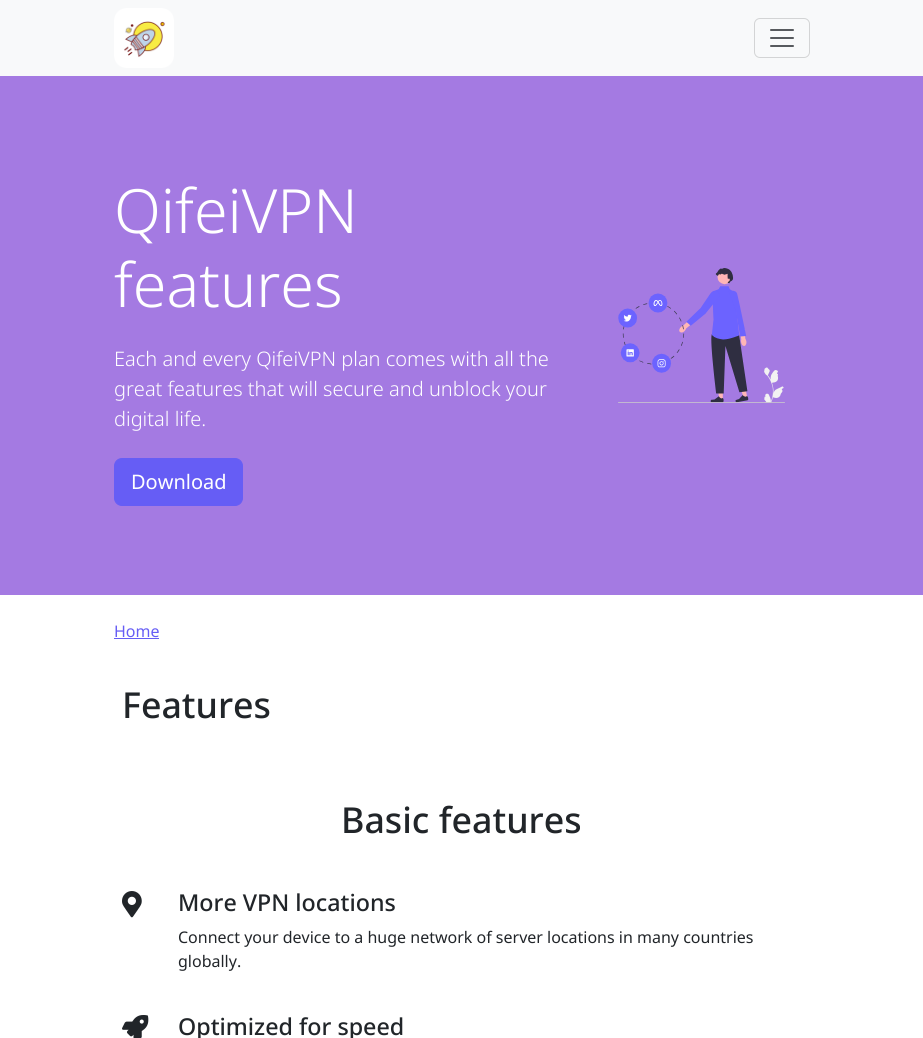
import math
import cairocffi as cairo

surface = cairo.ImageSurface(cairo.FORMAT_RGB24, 923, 1038)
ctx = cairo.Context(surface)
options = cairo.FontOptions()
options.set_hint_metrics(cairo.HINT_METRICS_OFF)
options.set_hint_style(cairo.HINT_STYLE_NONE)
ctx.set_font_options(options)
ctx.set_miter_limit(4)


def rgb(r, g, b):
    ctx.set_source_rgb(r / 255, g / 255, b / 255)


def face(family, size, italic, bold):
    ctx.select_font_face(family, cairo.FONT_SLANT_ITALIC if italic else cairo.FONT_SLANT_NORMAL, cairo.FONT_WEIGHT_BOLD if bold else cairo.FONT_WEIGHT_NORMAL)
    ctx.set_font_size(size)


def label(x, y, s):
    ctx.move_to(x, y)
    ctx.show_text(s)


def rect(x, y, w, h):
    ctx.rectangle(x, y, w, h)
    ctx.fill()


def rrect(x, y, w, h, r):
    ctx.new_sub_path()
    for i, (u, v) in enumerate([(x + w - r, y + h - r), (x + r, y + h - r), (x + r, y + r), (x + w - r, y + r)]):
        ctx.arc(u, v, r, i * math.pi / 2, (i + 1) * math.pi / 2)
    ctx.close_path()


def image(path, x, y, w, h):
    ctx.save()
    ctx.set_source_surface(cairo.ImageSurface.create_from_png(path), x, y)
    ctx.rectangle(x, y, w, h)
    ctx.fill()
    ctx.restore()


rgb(255, 255, 255)
ctx.paint()
rgb(248, 249, 250)
rect(0, 0, 923, 76)
image('image0.png', 114, 8, 60, 60)
rrect(754.5, 18.5, 55, 39, 5.5)
rgb(211, 212, 213)
ctx.set_line_width(1)
ctx.stroke()
image('image1.png', 770, 29, 24, 18)
rgb(164, 122, 226)
rect(0, 76, 923, 519)
face('Noto Sans Light', 61, 0, 0)
rgb(255, 255, 255)
label(114, 233, 'QifeiVPN')
label(114, 307, 'features')
face('Noto Sans Light', 20, 0, 0)
label(114, 366, 'Each and every QifeiVPN plan comes with all the')
label(114, 396, 'great features that will secure and unblock your')
label(114, 426, 'digital life.')
rgb(102, 93, 245)
rrect(114.5, 458.5, 128, 47, 7.5)
ctx.fill_preserve()
ctx.stroke()
face('Noto Sans', 20, 0, 0)
rgb(255, 255, 255)
label(131, 489, 'Download')
image('image2.png', 618, 268, 167, 135)
face('Noto Sans', 16, 0, 0)
rgb(102, 93, 245)
label(114, 637, 'Home')
rect(114, 638, 45, 1)
face('Noto Sans Medium', 35.75, 0, 0)
rgb(33, 37, 41)
label(122, 718, 'Features')
label(341, 833, 'Basic features')
image('image3.png', 122, 891, 20, 27)
face('Noto Sans Medium', 23.25, 0, 0)
label(178, 911, 'More VPN locations')
face('Noto Sans', 16, 0, 0)
label(178, 943, 'Connect your device to a huge network of server locations in many countries')
label(178, 967, 'globally.')
image('image4.png', 122, 1015, 27, 23)
face('Noto Sans Medium', 23.25, 0, 0)
label(178, 1035, 'Optimized for speed')
surface.write_to_png('render.png')
